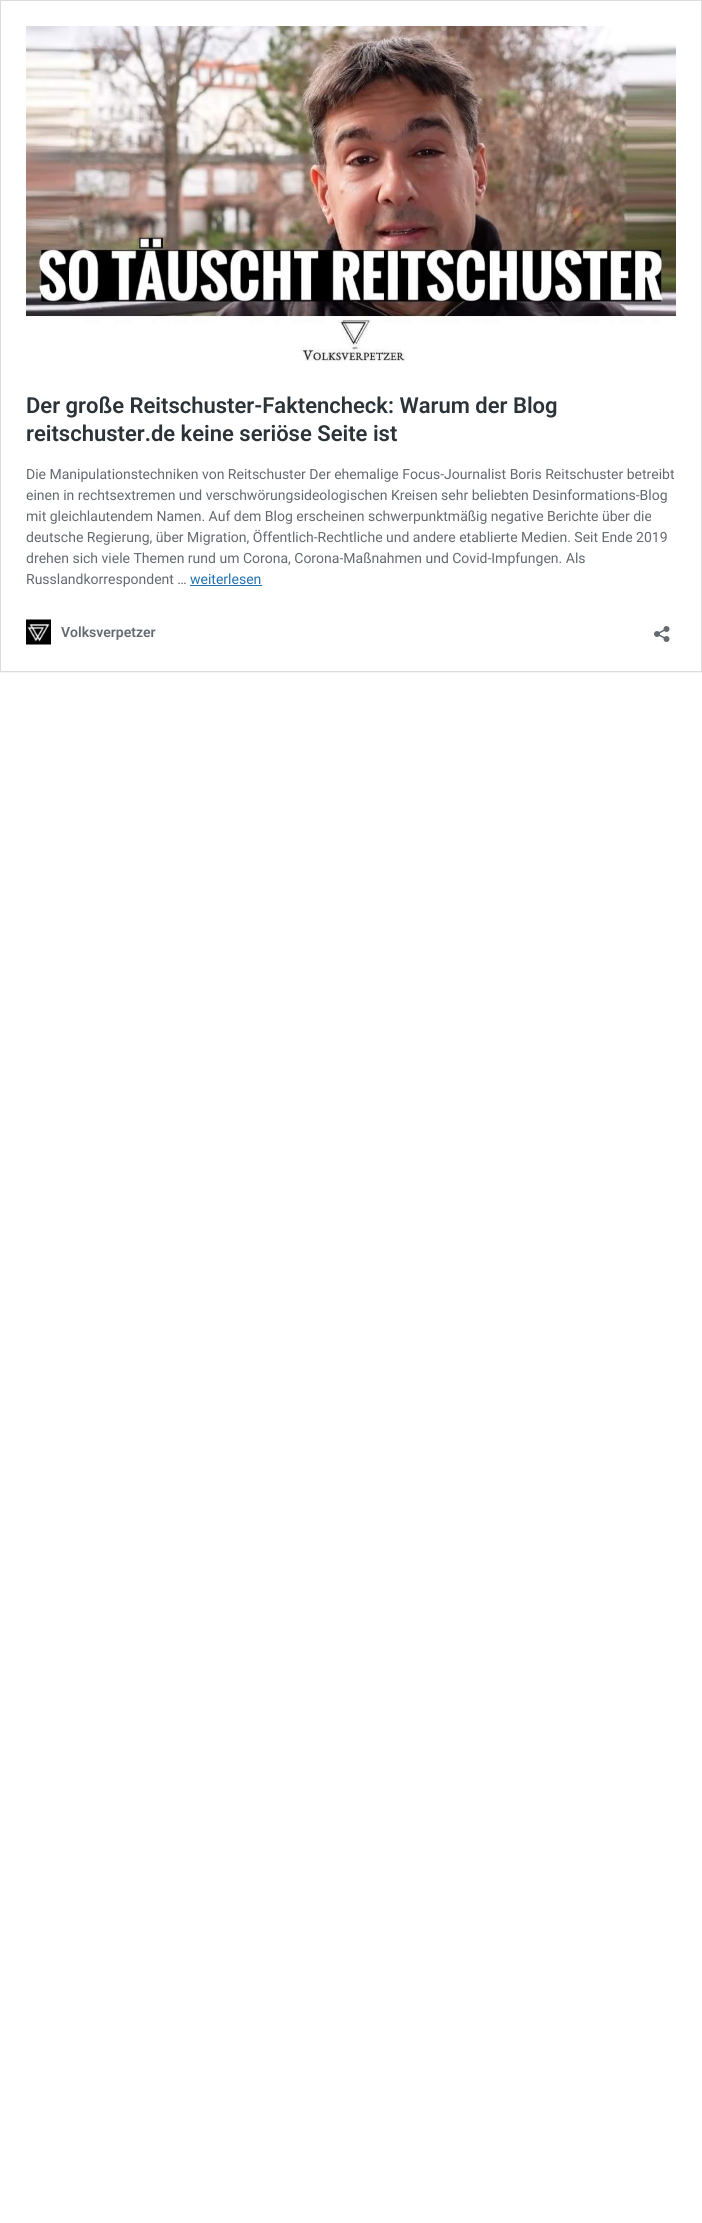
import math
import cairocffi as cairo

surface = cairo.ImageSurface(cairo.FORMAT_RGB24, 702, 2223)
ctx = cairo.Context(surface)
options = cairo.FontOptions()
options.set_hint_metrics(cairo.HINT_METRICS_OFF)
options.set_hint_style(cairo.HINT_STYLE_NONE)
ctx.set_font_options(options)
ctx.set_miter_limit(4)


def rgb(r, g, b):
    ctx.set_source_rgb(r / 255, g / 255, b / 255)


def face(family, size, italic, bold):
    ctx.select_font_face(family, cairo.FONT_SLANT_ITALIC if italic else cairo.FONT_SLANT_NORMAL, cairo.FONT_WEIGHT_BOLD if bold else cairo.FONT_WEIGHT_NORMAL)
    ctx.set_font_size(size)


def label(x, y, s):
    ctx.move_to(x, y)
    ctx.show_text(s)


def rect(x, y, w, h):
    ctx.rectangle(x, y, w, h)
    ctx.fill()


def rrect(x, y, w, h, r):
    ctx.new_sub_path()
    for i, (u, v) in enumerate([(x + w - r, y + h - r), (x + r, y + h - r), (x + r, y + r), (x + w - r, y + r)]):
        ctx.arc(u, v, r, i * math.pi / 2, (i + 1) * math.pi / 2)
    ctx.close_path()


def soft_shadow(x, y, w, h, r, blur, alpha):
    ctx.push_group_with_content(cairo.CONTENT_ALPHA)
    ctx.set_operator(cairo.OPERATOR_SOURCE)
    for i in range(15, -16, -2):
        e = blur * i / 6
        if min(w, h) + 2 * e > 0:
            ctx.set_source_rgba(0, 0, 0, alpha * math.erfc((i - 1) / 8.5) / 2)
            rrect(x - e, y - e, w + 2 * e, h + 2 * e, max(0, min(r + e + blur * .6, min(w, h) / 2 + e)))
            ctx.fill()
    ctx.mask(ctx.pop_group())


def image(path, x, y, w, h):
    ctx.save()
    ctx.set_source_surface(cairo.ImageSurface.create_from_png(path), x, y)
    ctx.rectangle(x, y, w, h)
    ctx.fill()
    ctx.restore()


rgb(255, 255, 255)
ctx.paint()
ctx.save()
ctx.rectangle(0, 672, 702, 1)
ctx.clip()
rgb(0, 0, 0)
soft_shadow(0, 1, 702, 672, 0, 0.5, 0.05)
ctx.restore()
ctx.rectangle(0.5, 0.5, 701, 671)
rgb(220, 220, 222)
ctx.set_line_width(1)
ctx.stroke()
image('image0.png', 26, 26, 650, 336)
face('Roboto SemiBold', 22, 0, 0)
rgb(44, 51, 56)
label(26, 413, 'Der große Reitschuster-Faktencheck: Warum der Blog')
label(26, 441, 'reitschuster.de keine seriöse Seite ist')
face('Roboto', 14, 0, 0)
rgb(100, 105, 112)
label(26, 479, 'Die Manipulationstechniken von Reitschuster Der ehemalige Focus-Journalist Boris Reitschuster betreibt')
label(26, 500, 'einen in rechtsextremen und verschwörungsideologischen Kreisen sehr beliebten Desinformations-Blog')
label(26, 521, 'mit gleichlautendem Namen. Auf dem Blog erscheinen schwerpunktmäßig negative Berichte über die')
label(26, 542, 'deutsche Regierung, über Migration, Öffentlich-Rechtliche und andere etablierte Medien. Seit Ende 2019')
label(26, 563, 'drehen sich viele Themen rund um Corona, Corona-Maßnahmen und Covid-Impfungen. Als')
label(26, 584, 'Russlandkorrespondent …')
rgb(34, 113, 177)
label(190, 584, 'weiterlesen')
rect(190, 585, 72, 1)
image('image1.png', 26, 619, 25, 26)
face('Roboto SemiBold', 14, 0, 0)
rgb(100, 105, 112)
label(61, 637, 'Volksverpetzer')
image('image2.png', 654, 626, 16, 16)
surface.write_to_png('render.png')
